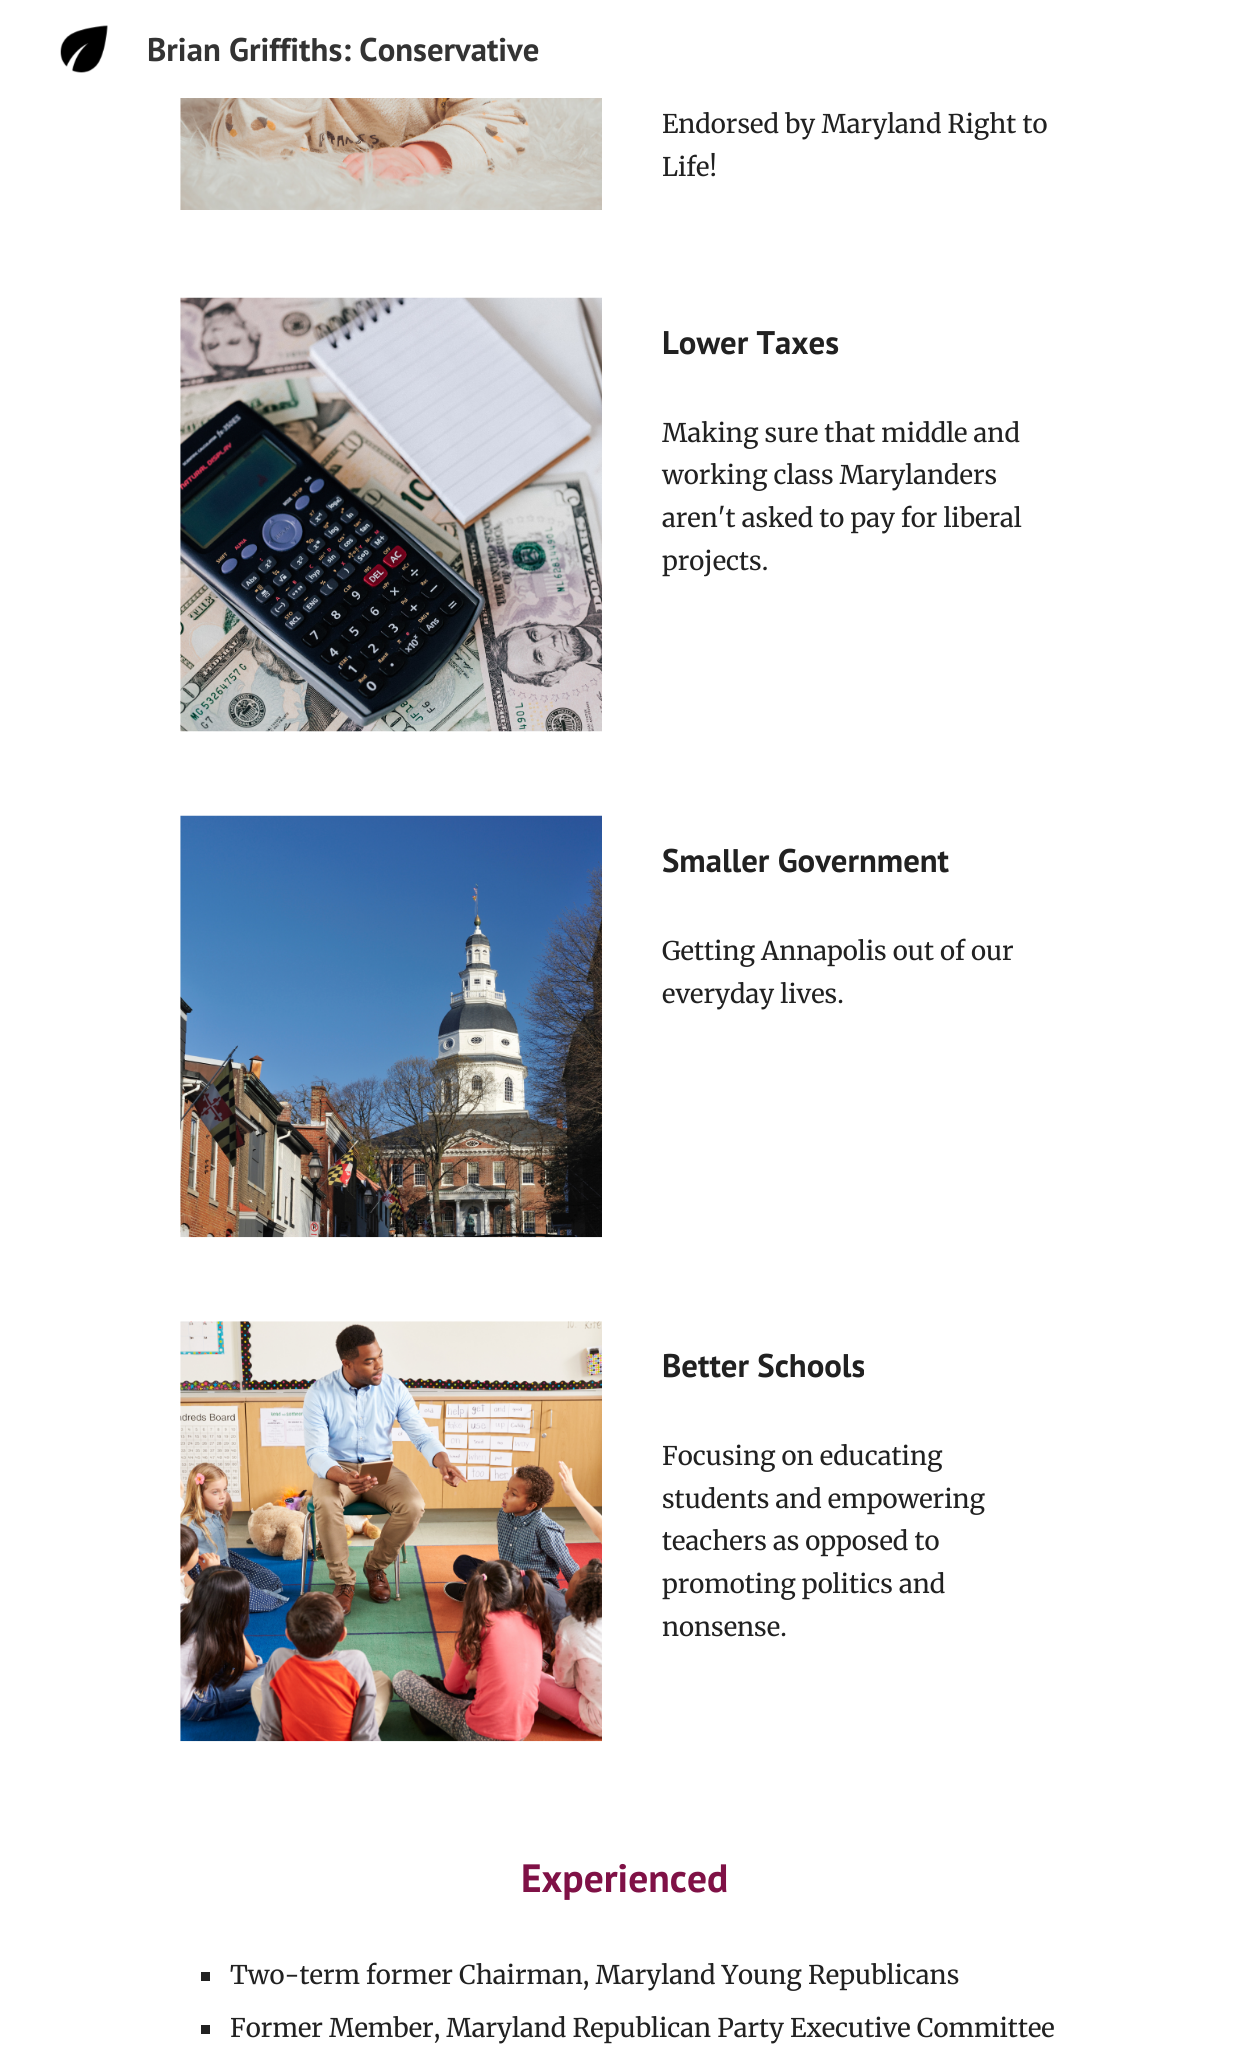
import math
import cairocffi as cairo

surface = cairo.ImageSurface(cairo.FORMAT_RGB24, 1249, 2048)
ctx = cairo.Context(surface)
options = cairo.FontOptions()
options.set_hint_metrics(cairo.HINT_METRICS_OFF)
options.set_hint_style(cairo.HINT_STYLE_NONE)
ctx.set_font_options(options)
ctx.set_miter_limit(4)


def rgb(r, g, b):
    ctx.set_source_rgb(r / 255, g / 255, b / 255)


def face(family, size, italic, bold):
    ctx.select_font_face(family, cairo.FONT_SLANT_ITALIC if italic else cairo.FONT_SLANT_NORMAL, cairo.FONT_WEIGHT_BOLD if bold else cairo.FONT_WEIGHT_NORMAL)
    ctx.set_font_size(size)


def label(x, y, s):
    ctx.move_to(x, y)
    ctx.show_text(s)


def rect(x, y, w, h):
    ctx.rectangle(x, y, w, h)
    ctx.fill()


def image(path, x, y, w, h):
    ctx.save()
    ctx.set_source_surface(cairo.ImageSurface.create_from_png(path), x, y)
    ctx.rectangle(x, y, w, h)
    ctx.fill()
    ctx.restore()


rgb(255, 255, 255)
ctx.paint()
image('image0.png', 60, 25, 48, 48)
face('PT Sans', 32.75, 0, 1)
rgb(51, 51, 51)
label(147, 61, 'Brian Griffiths: Conservative')
image('image1.png', 180, 98, 422, 112)
face('Merriweather', 25.7, 0, 0)
rgb(33, 33, 33)
label(662, 133, 'Endorsed by Maryland Right to')
label(662, 176, 'Life!')
image('image2.png', 180, 297, 422, 435)
face('PT Sans', 32.75, 0, 1)
label(662, 354, 'Lower Taxes')
face('Merriweather', 25.7, 0, 0)
label(662, 442, 'Making sure that middle and')
label(662, 484, 'working class Marylanders')
label(662, 527, 'aren\'t asked to pay for liberal')
label(662, 570, 'projects.')
image('image3.png', 180, 815, 422, 423)
face('PT Sans', 32.75, 0, 1)
label(662, 872, 'Smaller Government')
face('Merriweather', 25.7, 0, 0)
label(662, 960, 'Getting Annapolis out of our')
label(662, 1003, 'everyday lives.')
image('image4.png', 180, 1321, 422, 421)
face('PT Sans', 32.75, 0, 1)
label(662, 1377, 'Better Schools')
face('Merriweather', 25.7, 0, 0)
label(662, 1465, 'Focusing on educating')
label(662, 1508, 'students and empowering')
label(662, 1550, 'teachers as opposed to')
label(662, 1593, 'promoting politics and')
label(662, 1636, 'nonsense.')
face('PT Sans', 39.5, 0, 1)
rgb(127, 17, 70)
label(521, 1892, 'Experienced')
rgb(33, 33, 33)
rect(201, 1972, 9, 9)
face('Merriweather', 25.7, 0, 0)
label(230, 1984, 'Two-term former Chairman, Maryland Young Republicans')
rect(201, 2025, 9, 9)
label(230, 2037, 'Former Member, Maryland Republican Party Executive Committee')
surface.write_to_png('render.png')
